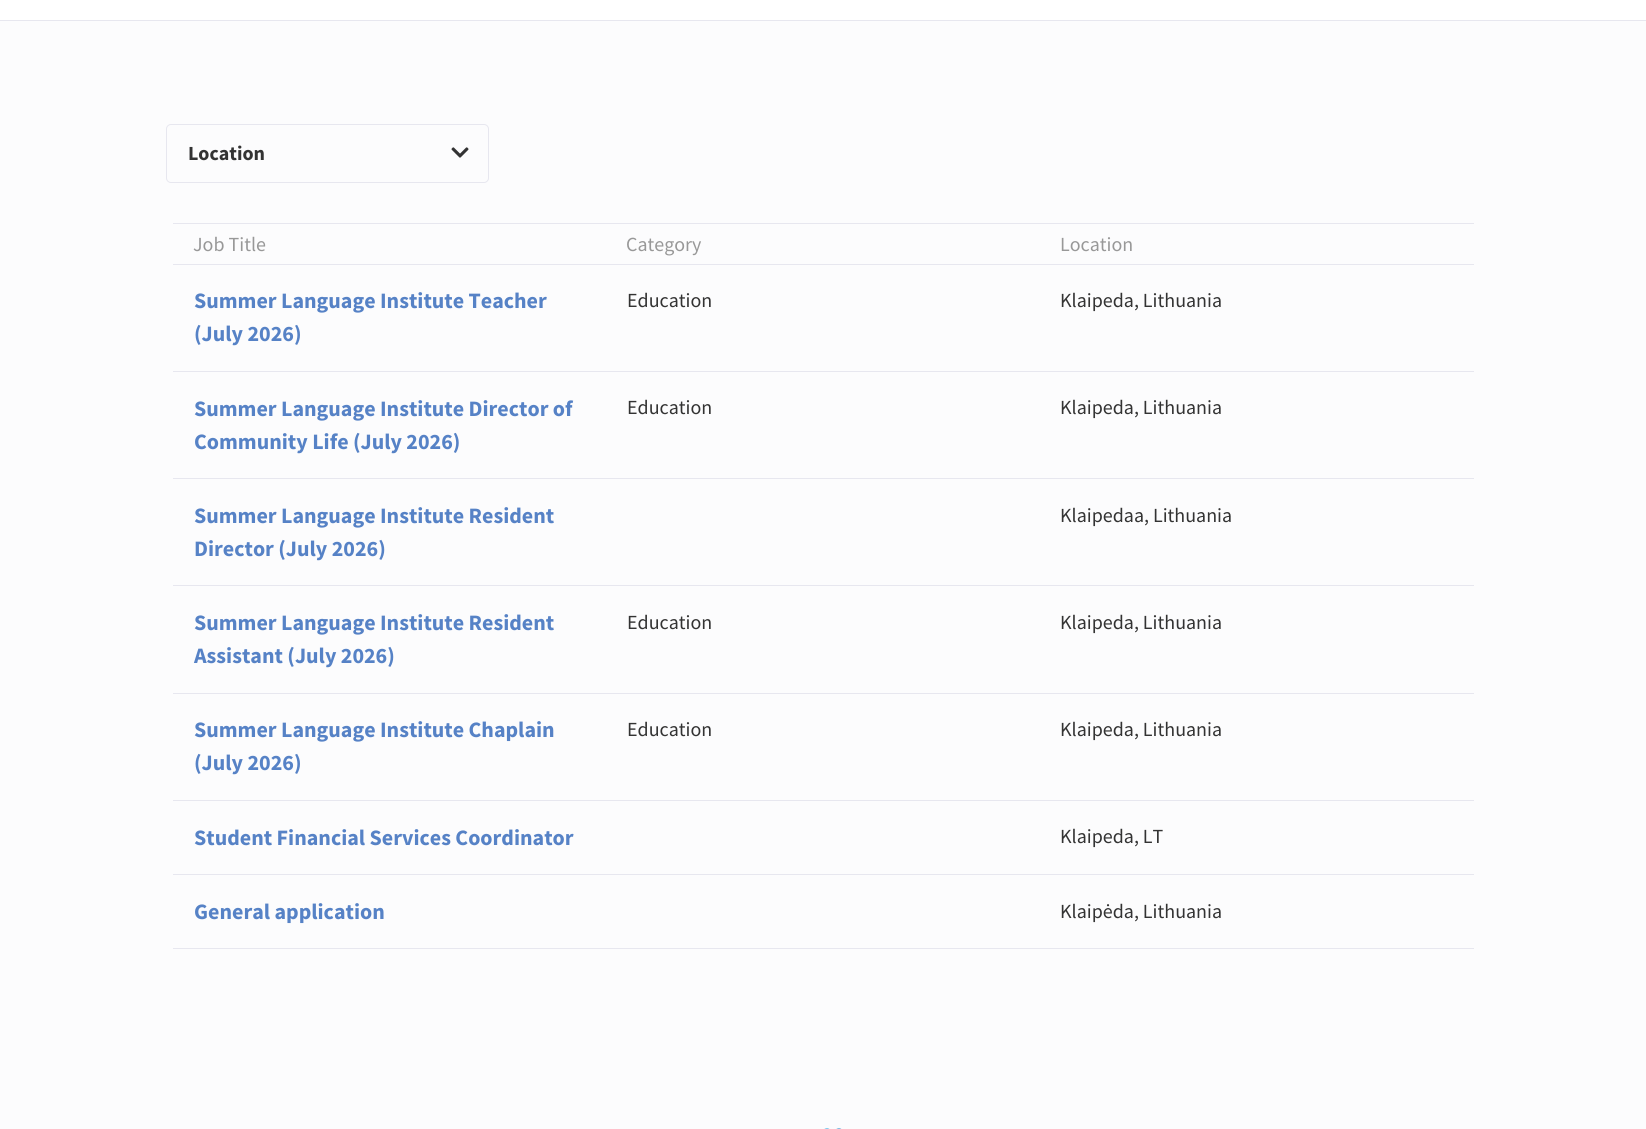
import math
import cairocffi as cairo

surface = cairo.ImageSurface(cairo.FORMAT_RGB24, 1646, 1129)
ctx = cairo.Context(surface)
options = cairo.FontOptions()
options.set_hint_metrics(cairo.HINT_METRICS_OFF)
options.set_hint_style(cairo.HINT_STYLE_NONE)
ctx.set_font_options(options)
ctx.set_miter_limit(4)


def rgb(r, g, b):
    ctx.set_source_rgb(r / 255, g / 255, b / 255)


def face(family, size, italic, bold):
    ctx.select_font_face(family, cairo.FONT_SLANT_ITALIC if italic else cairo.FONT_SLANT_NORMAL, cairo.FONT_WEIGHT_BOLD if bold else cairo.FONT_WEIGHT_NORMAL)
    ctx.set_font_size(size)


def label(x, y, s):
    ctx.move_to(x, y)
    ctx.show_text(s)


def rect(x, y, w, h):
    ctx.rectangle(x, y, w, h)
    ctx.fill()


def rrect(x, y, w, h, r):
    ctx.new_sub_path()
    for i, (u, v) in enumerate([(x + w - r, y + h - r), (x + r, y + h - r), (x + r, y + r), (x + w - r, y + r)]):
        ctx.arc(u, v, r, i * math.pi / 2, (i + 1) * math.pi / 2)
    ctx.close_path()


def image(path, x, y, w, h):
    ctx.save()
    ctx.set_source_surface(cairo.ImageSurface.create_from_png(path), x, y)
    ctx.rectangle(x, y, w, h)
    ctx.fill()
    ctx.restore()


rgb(252, 252, 253)
ctx.paint()
rgb(255, 255, 255)
rect(0, 0, 1646, 20)
rgb(231, 231, 239)
rect(0, 20, 1646, 1)
rrect(166.5, 124.5, 322, 58, 4.5)
ctx.set_line_width(1)
ctx.stroke()
face('Source Sans Pro', 20, 0, 1)
rgb(51, 51, 51)
label(188, 160, 'Location')
image('image0.png', 451, 147, 18, 11)
rgb(231, 231, 239)
rect(173, 223, 1301, 1)
face('Source Sans Pro', 20, 0, 0)
rgb(152, 152, 152)
label(193, 251, 'Job Title')
label(626, 251, 'Category')
label(1060, 251, 'Location')
rgb(231, 231, 239)
rect(173, 264, 1301, 1)
face('Source Sans Pro', 22, 0, 1)
rgb(86, 130, 198)
label(194, 308, 'Summer Language Institute Teacher')
label(194, 341, '(July 2026)')
face('Source Sans Pro', 20, 0, 0)
rgb(51, 51, 51)
label(627, 307, 'Education')
label(1060, 307, 'Klaipeda, Lithuania')
rgb(231, 231, 239)
rect(173, 371, 1301, 1)
face('Source Sans Pro', 22, 0, 1)
rgb(86, 130, 198)
label(194, 416, 'Summer Language Institute Director of')
label(194, 449, 'Community Life (July 2026)')
face('Source Sans Pro', 20, 0, 0)
rgb(51, 51, 51)
label(627, 414, 'Education')
label(1060, 414, 'Klaipeda, Lithuania')
rgb(231, 231, 239)
rect(173, 478, 1301, 1)
face('Source Sans Pro', 22, 0, 1)
rgb(86, 130, 198)
label(194, 523, 'Summer Language Institute Resident')
label(194, 556, 'Director (July 2026)')
face('Source Sans Pro', 20, 0, 0)
rgb(51, 51, 51)
label(1060, 522, 'Klaipedaa, Lithuania')
rgb(231, 231, 239)
rect(173, 585, 1301, 1)
face('Source Sans Pro', 22, 0, 1)
rgb(86, 130, 198)
label(194, 630, 'Summer Language Institute Resident')
label(194, 663, 'Assistant (July 2026)')
face('Source Sans Pro', 20, 0, 0)
rgb(51, 51, 51)
label(627, 629, 'Education')
label(1060, 629, 'Klaipeda, Lithuania')
rgb(231, 231, 239)
rect(173, 693, 1301, 1)
face('Source Sans Pro', 22, 0, 1)
rgb(86, 130, 198)
label(194, 737, 'Summer Language Institute Chaplain')
label(194, 770, '(July 2026)')
face('Source Sans Pro', 20, 0, 0)
rgb(51, 51, 51)
label(627, 736, 'Education')
label(1060, 736, 'Klaipeda, Lithuania')
rgb(231, 231, 239)
rect(173, 800, 1301, 1)
face('Source Sans Pro', 22, 0, 1)
rgb(86, 130, 198)
label(194, 845, 'Student Financial Services Coordinator')
face('Source Sans Pro', 20, 0, 0)
rgb(51, 51, 51)
label(1060, 843, 'Klaipeda, LT')
rgb(231, 231, 239)
rect(173, 874, 1301, 1)
rect(173, 948, 1301, 1)
face('Source Sans Pro', 22, 0, 1)
rgb(86, 130, 198)
label(194, 919, 'General application')
face('Source Sans Pro', 20, 0, 0)
rgb(51, 51, 51)
label(1060, 918, 'Klaipėda, Lithuania')
image('image1.png', 824, 1128, 18, 1)
surface.write_to_png('render.png')
